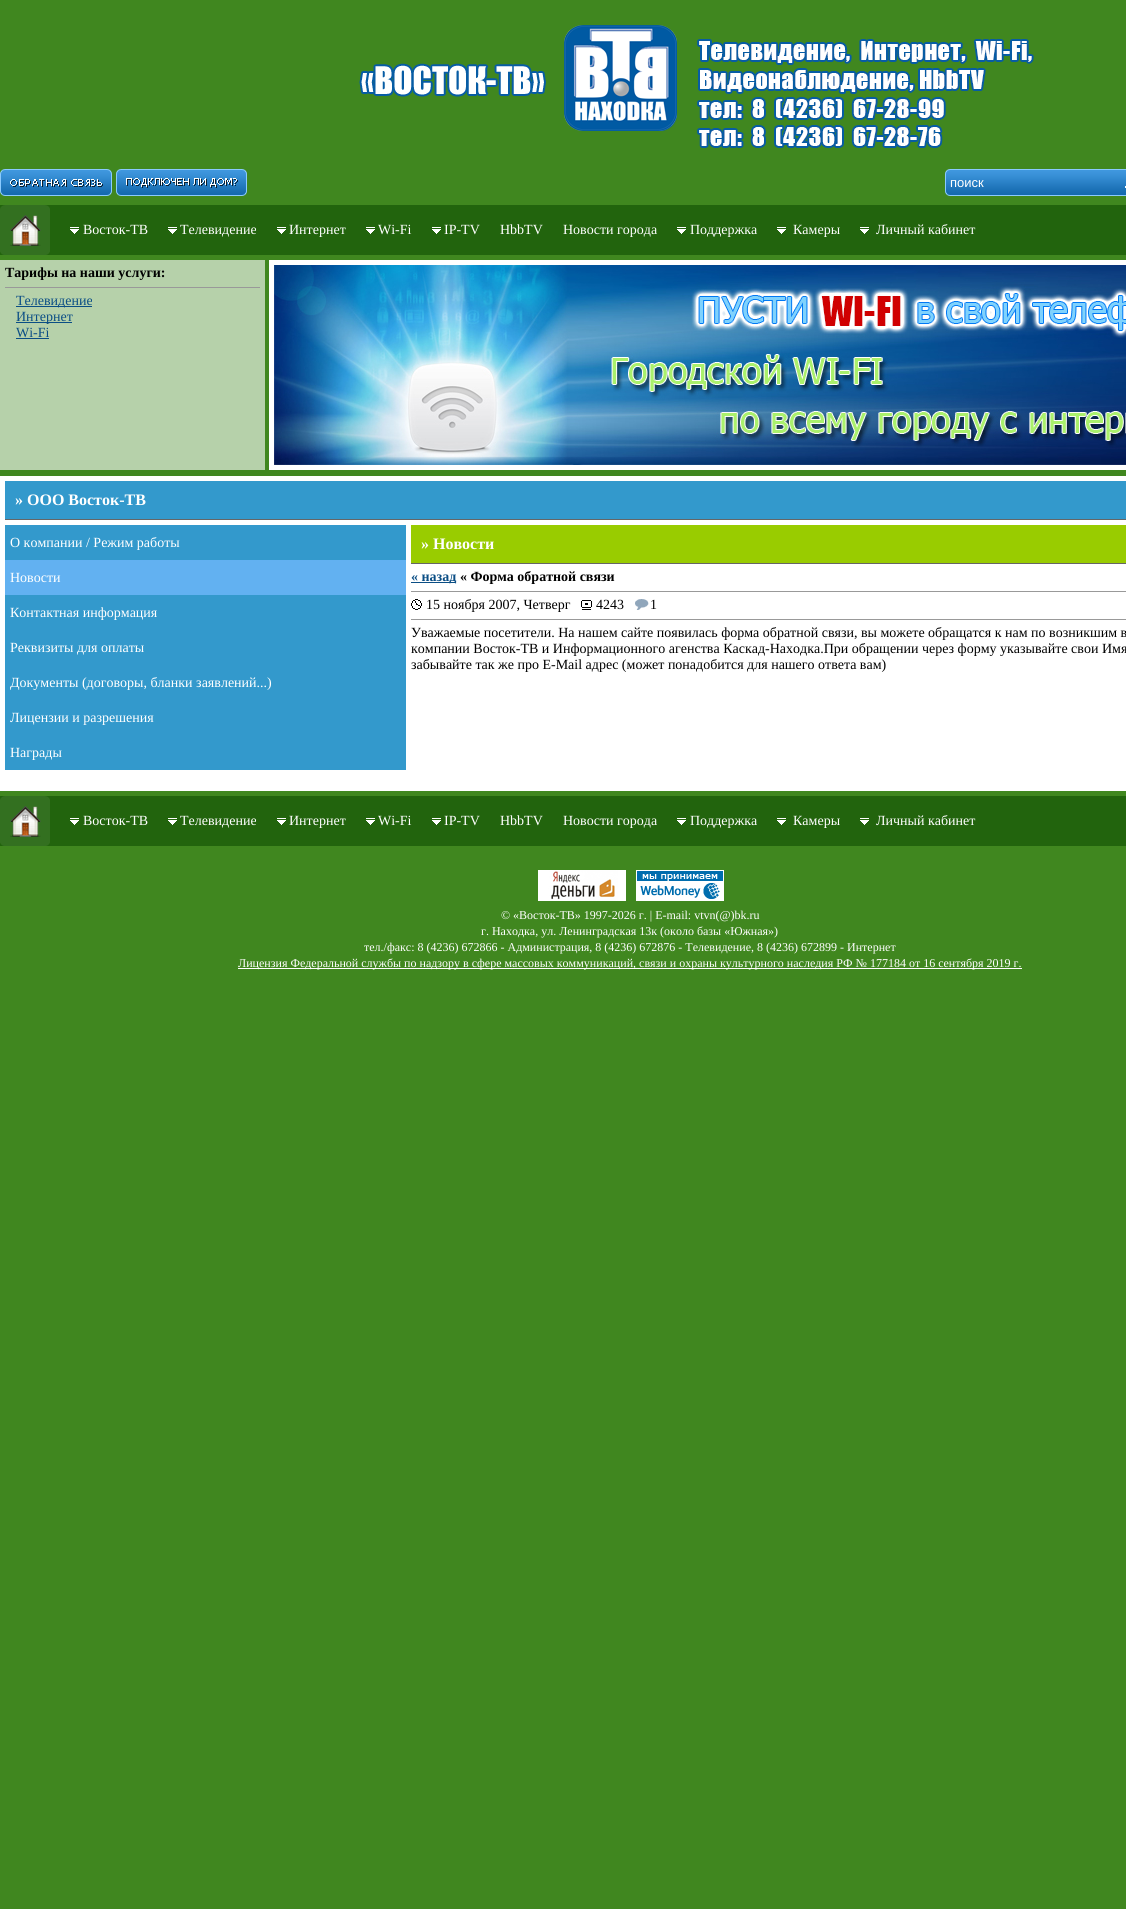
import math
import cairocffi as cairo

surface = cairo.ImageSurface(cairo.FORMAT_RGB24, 1126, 1909)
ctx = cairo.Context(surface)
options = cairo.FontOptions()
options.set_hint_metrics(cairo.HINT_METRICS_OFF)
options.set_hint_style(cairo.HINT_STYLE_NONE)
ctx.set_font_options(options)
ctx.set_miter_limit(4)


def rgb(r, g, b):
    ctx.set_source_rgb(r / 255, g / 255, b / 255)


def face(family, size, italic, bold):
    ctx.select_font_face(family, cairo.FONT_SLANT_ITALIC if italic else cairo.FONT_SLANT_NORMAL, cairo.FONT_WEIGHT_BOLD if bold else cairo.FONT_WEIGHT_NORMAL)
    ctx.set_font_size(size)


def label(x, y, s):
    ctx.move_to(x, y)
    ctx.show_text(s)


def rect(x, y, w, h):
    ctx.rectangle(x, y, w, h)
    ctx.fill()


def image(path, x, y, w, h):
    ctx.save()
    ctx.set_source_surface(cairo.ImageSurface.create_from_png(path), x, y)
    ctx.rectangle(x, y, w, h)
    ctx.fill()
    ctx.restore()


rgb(64, 135, 31)
ctx.paint()
image('image0.png', 359, 25, 675, 123)
image('image1.png', 0, 169, 112, 27)
image('image2.png', 116, 169, 131, 27)
image('image3.png', 945, 169, 181, 27)
face('Liberation Sans', 13, 0, 0)
rgb(255, 255, 255)
label(950, 187, 'поиск')
rgb(34, 100, 13)
rect(0, 205, 1126, 50)
image('image4.png', 0, 205, 50, 50)
image('image5.png', 10, 215, 31, 31)
image('image6.png', 70, 227, 9, 7)
face('Liberation Serif', 14, 0, 0)
rgb(255, 255, 255)
label(83, 234, 'Восток-ТВ')
image('image6.png', 168, 227, 9, 7)
label(180, 234, 'Телевидение')
image('image6.png', 277, 227, 9, 7)
label(289, 234, 'Интернет')
image('image6.png', 366, 227, 9, 7)
label(378, 234, 'Wi-Fi')
image('image6.png', 432, 227, 9, 7)
label(444, 234, 'IP-TV')
label(500, 234, 'HbbTV')
label(563, 234, 'Новости города')
image('image6.png', 677, 227, 9, 7)
label(690, 234, 'Поддержка')
image('image6.png', 777, 227, 9, 7)
label(793, 234, 'Камеры')
image('image6.png', 860, 227, 9, 7)
label(876, 234, 'Личный кабинет')
rgb(182, 209, 170)
rect(0, 260, 265, 210)
face('Liberation Serif', 14, 0, 1)
rgb(0, 0, 0)
label(5, 277, 'Тарифы на наши услуги:')
rgb(153, 153, 153)
rect(5, 287, 255, 1)
rgb(11, 78, 133)
rect(16, 306, 76, 1)
face('Liberation Serif', 14, 0, 0)
label(16, 305, 'Телевидение')
rect(16, 322, 56, 1)
label(16, 321, 'Интернет')
label(16, 337, 'Wi-Fi')
rect(16, 338, 33, 1)
rgb(255, 255, 255)
rect(269, 260, 857, 210)
image('image7.png', 274, 265, 852, 200)
rect(0, 476, 1126, 315)
rgb(51, 153, 204)
rect(5, 481, 1121, 38)
rgb(102, 102, 102)
rect(5, 519, 1121, 1)
face('Liberation Serif', 16, 0, 1)
rgb(255, 255, 255)
label(15, 505, '» ООО Восток-ТВ')
rgb(51, 153, 204)
rect(5, 525, 401, 245)
face('Liberation Serif', 14, 0, 0)
rgb(255, 255, 255)
label(10, 547, 'О компании / Режим работы')
rgb(98, 177, 241)
rect(5, 560, 401, 35)
rgb(255, 255, 255)
label(10, 582, 'Новости')
label(10, 617, 'Контактная информация')
label(10, 652, 'Реквизиты для оплаты')
label(10, 687, 'Документы (договоры, бланки заявлений...)')
label(10, 722, 'Лицензии и разрешения')
label(10, 757, 'Награды')
rgb(153, 204, 0)
rect(411, 525, 715, 38)
rgb(102, 102, 102)
rect(411, 563, 715, 1)
face('Liberation Serif', 16, 0, 1)
rgb(255, 255, 255)
label(421, 549, '» Новости')
rgb(11, 78, 133)
rect(411, 582, 45, 1)
face('Liberation Serif', 14, 0, 1)
label(411, 581, '« назад')
rgb(0, 0, 0)
label(460, 581, '« Форма обратной связи')
rgb(153, 153, 153)
rect(411, 591, 715, 1)
image('image8.png', 411, 599, 11, 11)
face('Liberation Serif', 14, 0, 0)
rgb(0, 0, 0)
label(426, 609, '15 ноября 2007, Четверг')
image('image9.png', 581, 600, 11, 10)
label(596, 609, '4243')
image('image10.png', 635, 599, 14, 11)
label(650, 609, '1')
rgb(153, 153, 153)
rect(411, 619, 715, 1)
rgb(0, 0, 0)
label(411, 637, 'Уважаемые посетители. На нашем сайте появилась форма обратной связи, вы можете обращатся к нам по возникшим в')
label(411, 653, 'компании Восток-ТВ и Информационного агенства Каскад-Находка.При обращении через форму указывайте свои Имя')
label(411, 669, 'забывайте так же про E-Mail адрес (может понадобится для нашего ответа вам)')
rgb(34, 100, 13)
rect(0, 796, 1126, 50)
image('image4.png', 0, 796, 50, 50)
image('image5.png', 10, 806, 31, 31)
image('image6.png', 70, 818, 9, 7)
rgb(255, 255, 255)
label(83, 825, 'Восток-ТВ')
image('image6.png', 168, 818, 9, 7)
label(180, 825, 'Телевидение')
image('image6.png', 277, 818, 9, 7)
label(289, 825, 'Интернет')
image('image6.png', 366, 818, 9, 7)
label(378, 825, 'Wi-Fi')
image('image6.png', 432, 818, 9, 7)
label(444, 825, 'IP-TV')
label(500, 825, 'HbbTV')
label(563, 825, 'Новости города')
image('image6.png', 677, 818, 9, 7)
label(690, 825, 'Поддержка')
image('image6.png', 777, 818, 9, 7)
label(793, 825, 'Камеры')
image('image6.png', 860, 818, 9, 7)
label(876, 825, 'Личный кабинет')
image('image11.png', 538, 870, 88, 31)
image('image12.png', 636, 870, 88, 31)
face('Liberation Serif', 12, 0, 0)
label(501, 919, '© «Восток-ТВ» 1997-2026 г. | E-mail: vtvn(@)bk.ru')
label(481, 935, 'г. Находка, ул. Ленинградская 13к (около базы «Южная»)')
label(364, 951, 'тел./факс: 8 (4236) 672866 - Администрация, 8 (4236) 672876 - Телевидение, 8 (4236) 672899 - Интернет')
rect(238, 968, 784, 1)
label(238, 967, 'Лицензия Федеральной службы по надзору в сфере массовых коммуникаций, связи и охраны культурного наследия РФ № 177184 от 16 сентября 2019 г.')
surface.write_to_png('render.png')
